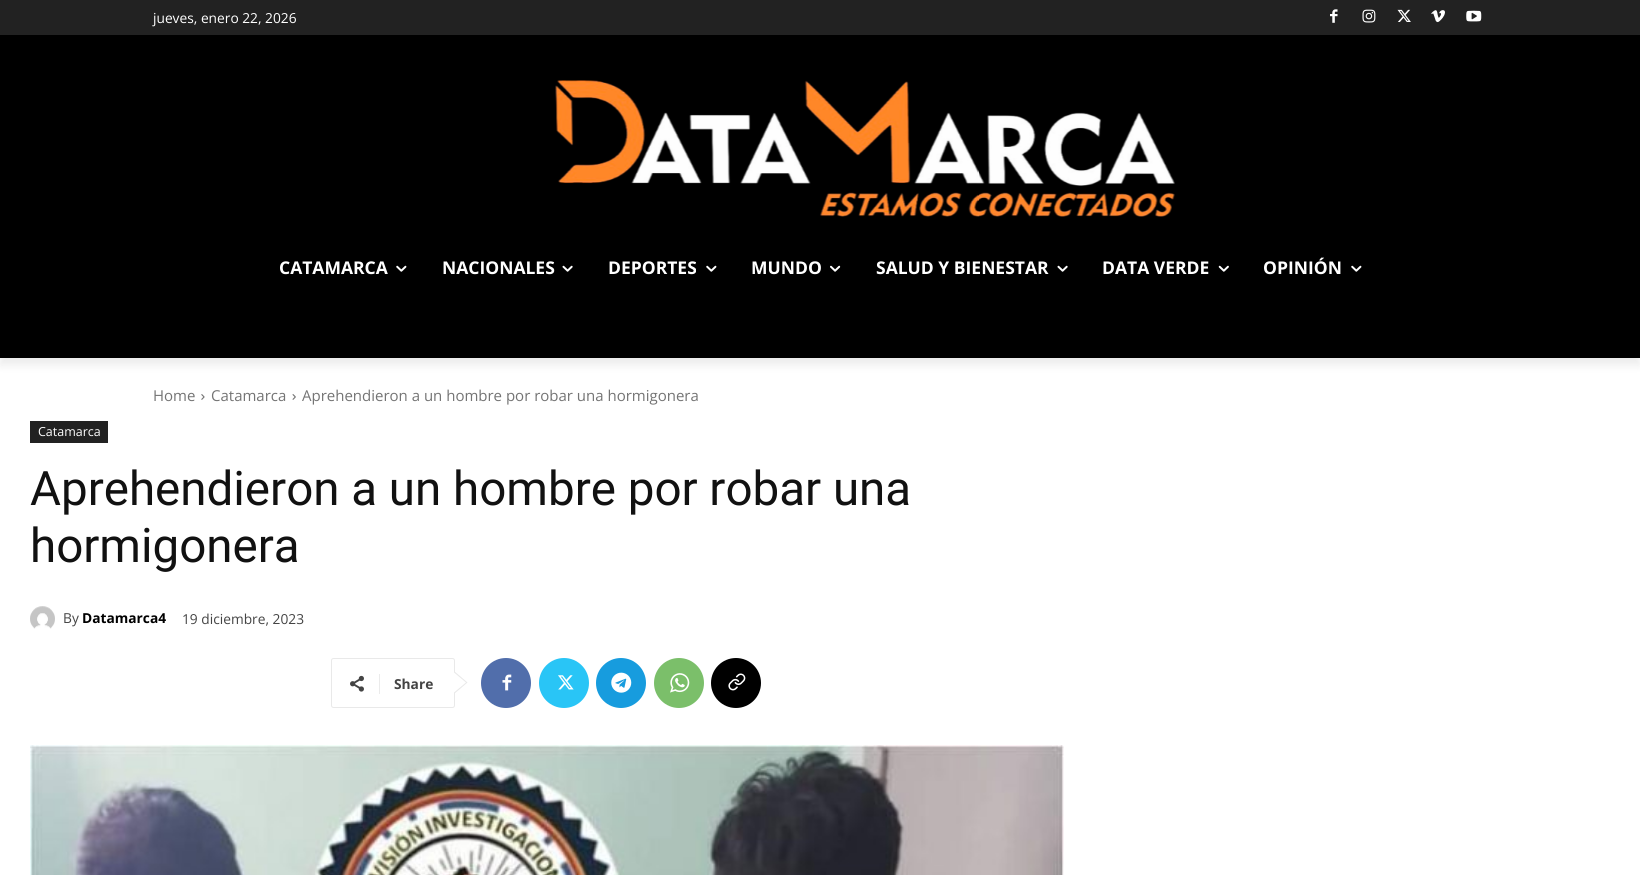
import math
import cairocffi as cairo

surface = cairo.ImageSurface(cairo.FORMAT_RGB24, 1640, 875)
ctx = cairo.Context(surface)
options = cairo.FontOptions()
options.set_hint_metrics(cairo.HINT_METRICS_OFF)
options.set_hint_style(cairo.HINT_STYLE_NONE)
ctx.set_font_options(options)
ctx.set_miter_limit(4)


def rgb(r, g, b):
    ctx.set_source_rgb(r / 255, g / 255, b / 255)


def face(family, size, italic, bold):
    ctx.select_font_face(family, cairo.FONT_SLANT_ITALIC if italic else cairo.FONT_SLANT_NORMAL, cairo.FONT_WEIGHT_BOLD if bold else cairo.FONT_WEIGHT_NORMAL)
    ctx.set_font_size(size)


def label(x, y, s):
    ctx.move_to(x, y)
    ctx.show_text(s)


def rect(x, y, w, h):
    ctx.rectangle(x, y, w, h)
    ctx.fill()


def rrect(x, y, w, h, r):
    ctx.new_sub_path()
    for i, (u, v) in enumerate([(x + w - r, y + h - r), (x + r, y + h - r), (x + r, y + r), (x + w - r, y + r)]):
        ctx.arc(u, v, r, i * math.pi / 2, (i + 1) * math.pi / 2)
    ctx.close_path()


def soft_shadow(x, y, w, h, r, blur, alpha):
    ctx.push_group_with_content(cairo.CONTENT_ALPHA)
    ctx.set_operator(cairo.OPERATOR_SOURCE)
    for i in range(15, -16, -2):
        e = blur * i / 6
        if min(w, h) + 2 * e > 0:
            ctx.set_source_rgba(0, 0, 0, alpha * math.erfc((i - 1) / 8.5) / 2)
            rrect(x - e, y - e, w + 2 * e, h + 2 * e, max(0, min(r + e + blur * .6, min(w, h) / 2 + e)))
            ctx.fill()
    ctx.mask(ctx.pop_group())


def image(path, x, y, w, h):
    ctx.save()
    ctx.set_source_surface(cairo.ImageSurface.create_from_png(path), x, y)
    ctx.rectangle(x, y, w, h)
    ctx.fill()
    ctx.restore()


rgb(255, 255, 255)
ctx.paint()
rgb(34, 34, 34)
rect(0, 0, 1640, 35)
image('image0.png', 1330, 9, 8, 14)
image('image1.png', 1362, 9, 14, 14)
image('image2.png', 1397, 9, 14, 13)
image('image3.png', 1431, 10, 14, 13)
image('image4.png', 1466, 10, 16, 12)
rgb(0, 0, 0)
rect(0, 35, 1640, 323)
image('image5.png', 555, 80, 620, 137)
ctx.save()
ctx.set_fill_rule(cairo.FILL_RULE_EVEN_ODD)
ctx.new_path()
ctx.move_to(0, 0)
ctx.line_to(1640, 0)
ctx.line_to(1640, 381)
ctx.line_to(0, 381)
ctx.close_path()
ctx.move_to(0, 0)
ctx.line_to(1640, 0)
ctx.line_to(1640, 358)
ctx.line_to(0, 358)
ctx.close_path()
ctx.clip()
rgb(0, 0, 0)
soft_shadow(0, 8, 1640, 357, 0, 5, 0.08)
ctx.restore()
face('Open Sans', 13.75, 0, 0)
rgb(255, 255, 255)
label(153, 23, 'jueves, enero 22, 2026')
face('Open Sans', 17.5, 0, 1)
label(279, 274, 'CATAMARCA')
image('image6.png', 396, 265, 11, 7)
label(442, 274, 'NACIONALES')
image('image7.png', 562, 265, 11, 7)
label(608, 274, 'DEPORTES')
image('image6.png', 706, 265, 11, 7)
label(751, 274, 'MUNDO')
image('image8.png', 830, 265, 11, 7)
label(876, 274, 'SALUD Y BIENESTAR')
image('image7.png', 1057, 265, 11, 7)
label(1102, 274, 'DATA VERDE')
image('image9.png', 1218, 265, 11, 7)
label(1263, 274, 'OPINIÓN')
image('image6.png', 1351, 265, 11, 7)
face('Open Sans', 15, 0, 0)
rgb(116, 116, 116)
label(153, 401, 'Home')
image('image10.png', 201, 394, 4, 6)
label(211, 401, 'Catamarca')
image('image11.png', 292, 394, 4, 6)
label(302, 401, 'Aprehendieron a un hombre por robar una hormigonera')
rgb(34, 34, 34)
rect(30, 421, 78, 22)
face('Open Sans', 12.5, 0, 0)
rgb(255, 255, 255)
label(38, 436, 'Catamarca')
face('Roboto', 47.5, 0, 0)
rgb(17, 17, 17)
label(30, 505, 'Aprehendieron a un hombre por robar una')
label(30, 562, 'hormigonera')
image('image12.png', 30, 606, 25, 23)
face('Open Sans', 13.75, 0, 0)
rgb(68, 68, 68)
label(63, 623, 'By')
face('Open Sans', 13.75, 0, 1)
rgb(0, 0, 0)
label(82, 623, 'Datamarca4')
face('Open Sans', 13.75, 0, 0)
rgb(68, 68, 68)
label(182, 624, '19 diciembre, 2023')
rrect(331.5, 658.5, 123, 49, 2)
rgb(233, 233, 233)
ctx.set_line_width(1)
ctx.stroke()
ctx.new_path()
ctx.move_to(454, 694)
ctx.line_to(454, 671)
ctx.line_to(467.5, 682.5)
ctx.close_path()
ctx.fill()
image('image13.png', 350, 675, 14, 17)
rgb(235, 235, 235)
rect(379, 674, 1, 20)
face('Open Sans', 13.75, 0, 1)
rgb(68, 68, 68)
label(394, 689, 'Share')
rgb(255, 255, 255)
ctx.new_path()
ctx.move_to(454, 692.5)
ctx.line_to(454, 672.5)
ctx.line_to(466, 682.5)
ctx.close_path()
ctx.fill()
rgb(81, 110, 171)
ctx.arc(506, 683, 25, 0, 2 * math.pi)
ctx.fill()
image('image14.png', 502, 674, 10, 17)
rgb(41, 197, 246)
ctx.arc(564, 683, 25, 0, 2 * math.pi)
ctx.fill()
image('image15.png', 558, 675, 16, 15)
rgb(23, 156, 222)
ctx.arc(621, 683, 25, 0, 2 * math.pi)
ctx.fill()
image('image16.png', 611, 672, 21, 21)
rgb(123, 191, 106)
ctx.arc(679, 683, 25, 0, 2 * math.pi)
ctx.fill()
image('image17.png', 670, 673, 20, 20)
rgb(0, 0, 0)
ctx.arc(736, 683, 25, 0, 2 * math.pi)
ctx.fill()
image('image18.png', 728, 673, 18, 18)
image('image19.png', 30, 745, 1034, 130)
surface.write_to_png('render.png')
